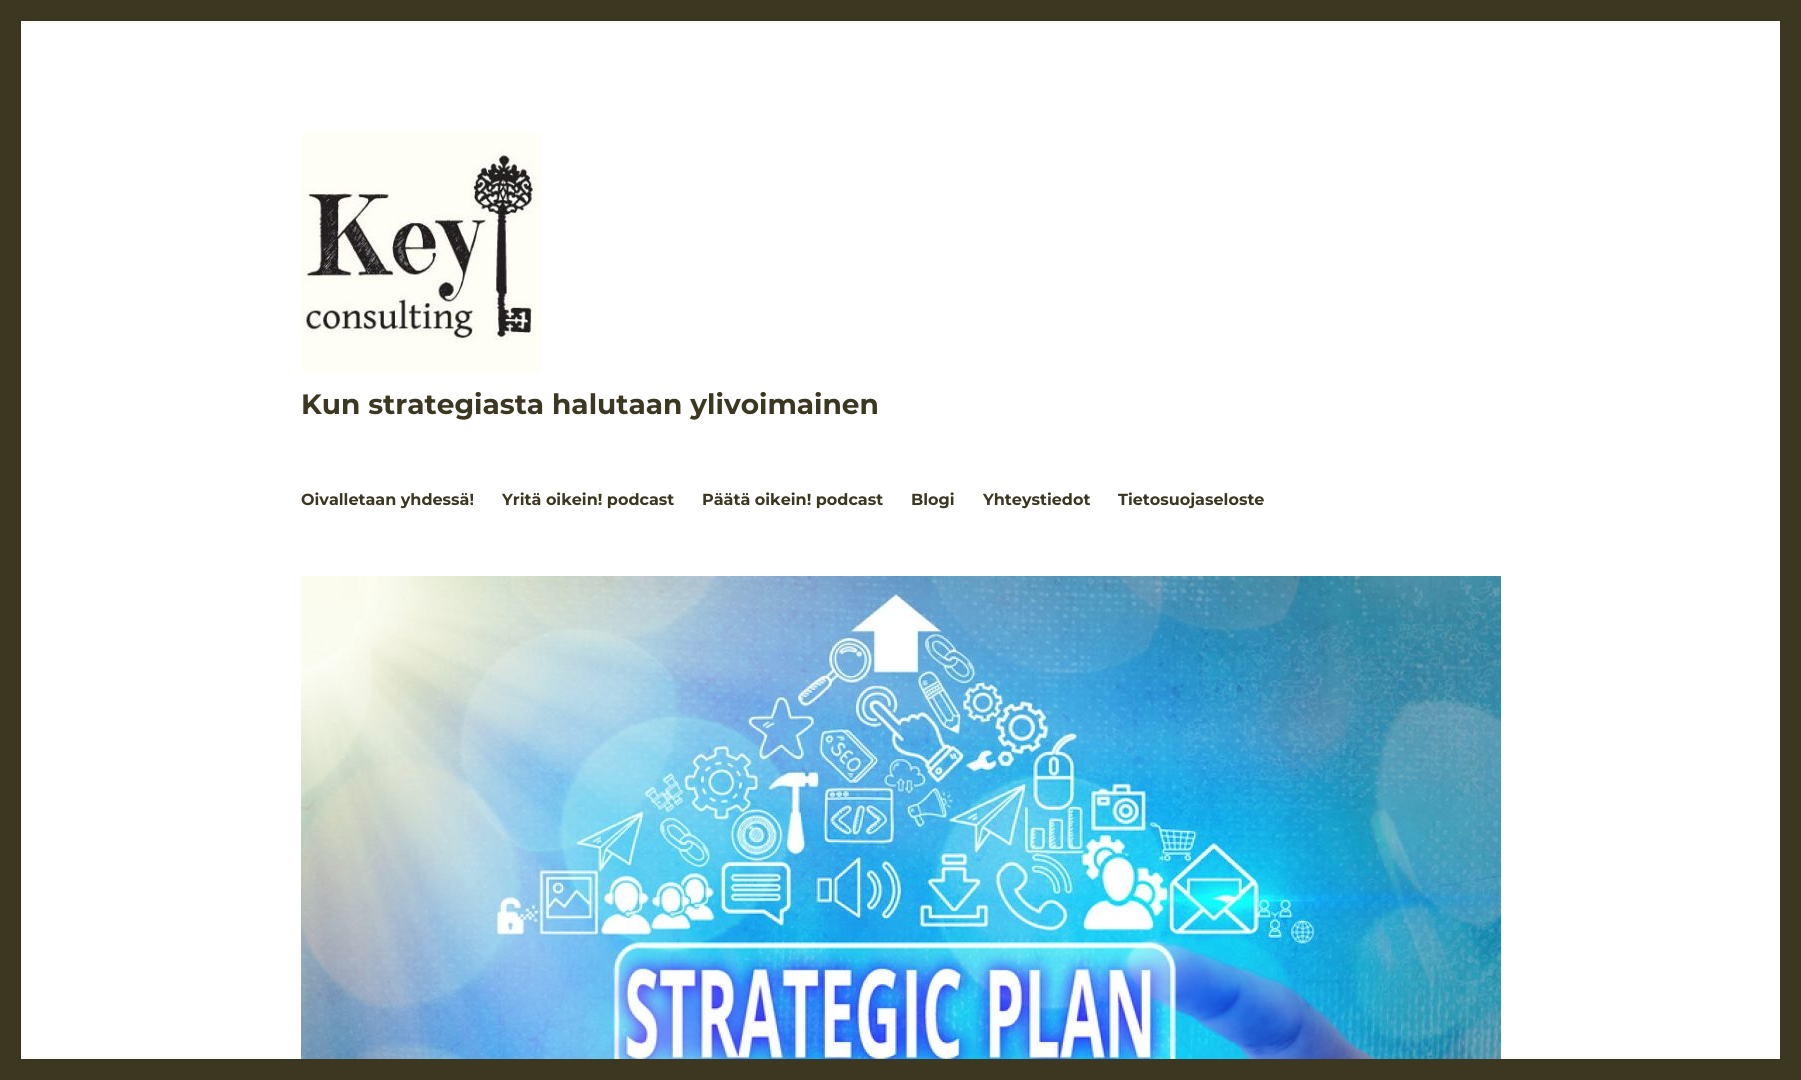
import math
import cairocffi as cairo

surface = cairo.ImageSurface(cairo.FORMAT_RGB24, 1801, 1080)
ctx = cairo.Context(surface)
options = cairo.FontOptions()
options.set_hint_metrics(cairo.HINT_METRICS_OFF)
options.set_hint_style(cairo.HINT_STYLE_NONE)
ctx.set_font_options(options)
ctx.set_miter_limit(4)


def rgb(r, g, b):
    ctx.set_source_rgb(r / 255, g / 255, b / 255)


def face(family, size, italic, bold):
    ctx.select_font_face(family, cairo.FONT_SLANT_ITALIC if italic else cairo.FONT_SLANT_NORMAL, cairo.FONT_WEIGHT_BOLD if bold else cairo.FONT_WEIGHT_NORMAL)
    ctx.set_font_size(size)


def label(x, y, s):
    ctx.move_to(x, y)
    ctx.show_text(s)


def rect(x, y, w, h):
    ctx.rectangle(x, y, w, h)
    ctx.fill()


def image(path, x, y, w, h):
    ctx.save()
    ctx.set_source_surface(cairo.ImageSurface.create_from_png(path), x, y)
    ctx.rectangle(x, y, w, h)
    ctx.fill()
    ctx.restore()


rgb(59, 55, 33)
ctx.paint()
rgb(255, 255, 255)
rect(21, 21, 1759, 1038)
image('image0.png', 301, 133, 240, 240)
face('Montserrat Thin', 28, 0, 0)
rgb(59, 55, 33)
label(301, 414, 'Kun strategiasta halutaan ylivoimainen')
face('Montserrat Thin', 16, 0, 0)
label(301, 505, 'Oivalletaan yhdessä!')
label(502, 505, 'Yritä oikein! podcast')
label(702, 505, 'Päätä oikein! podcast')
label(911, 505, 'Blogi')
label(983, 505, 'Yhteystiedot')
label(1118, 505, 'Tietosuojaseloste')
image('image1.png', 301, 576, 1200, 483)
surface.write_to_png('render.png')
